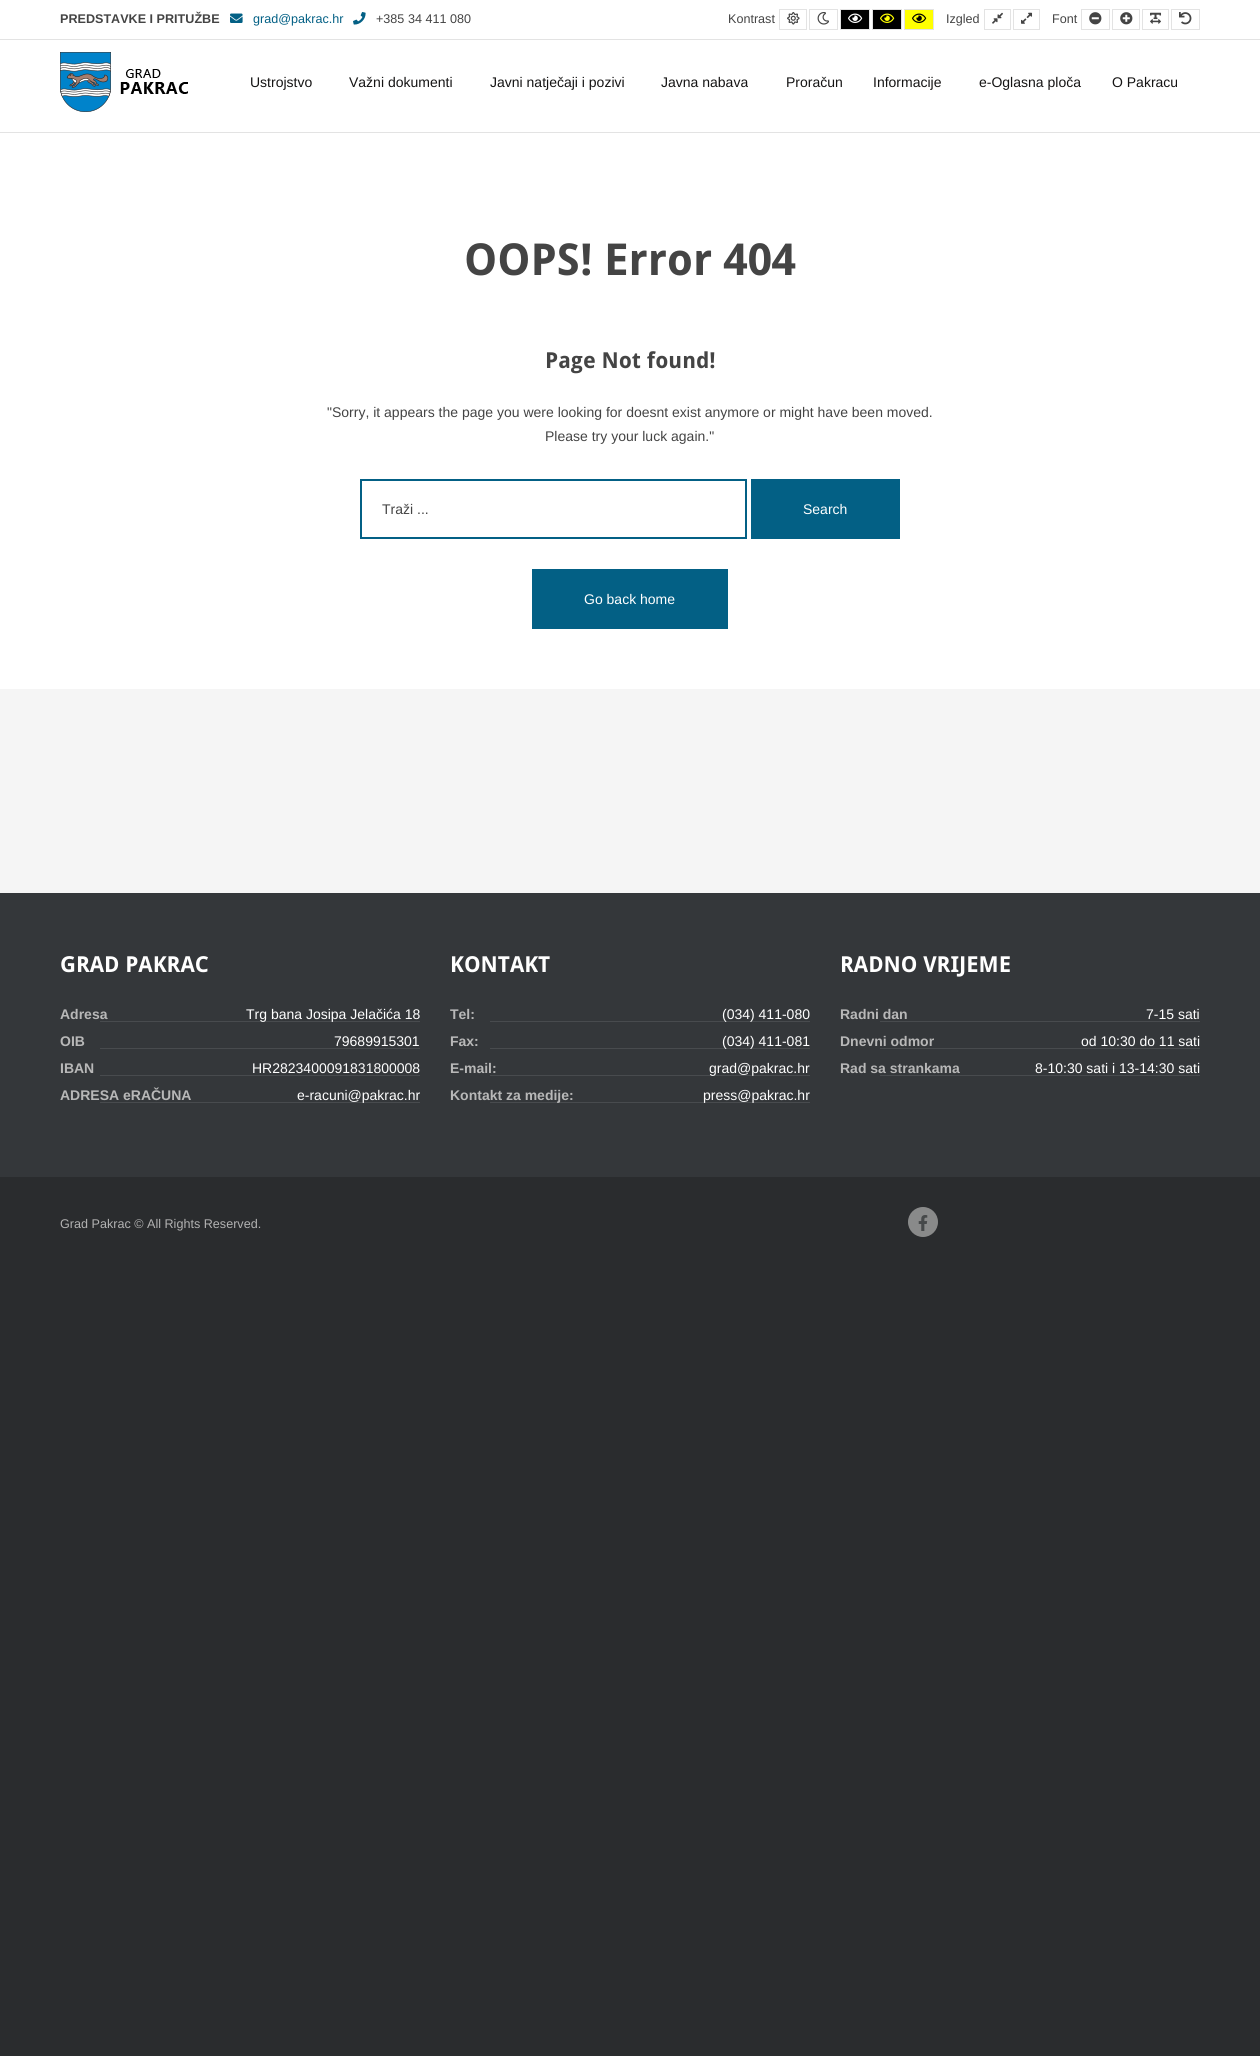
import math
import cairocffi as cairo

surface = cairo.ImageSurface(cairo.FORMAT_RGB24, 1260, 2056)
ctx = cairo.Context(surface)
options = cairo.FontOptions()
options.set_hint_metrics(cairo.HINT_METRICS_OFF)
options.set_hint_style(cairo.HINT_STYLE_NONE)
ctx.set_font_options(options)
ctx.set_miter_limit(4)


def rgb(r, g, b):
    ctx.set_source_rgb(r / 255, g / 255, b / 255)


def face(family, size, italic, bold):
    ctx.select_font_face(family, cairo.FONT_SLANT_ITALIC if italic else cairo.FONT_SLANT_NORMAL, cairo.FONT_WEIGHT_BOLD if bold else cairo.FONT_WEIGHT_NORMAL)
    ctx.set_font_size(size)


def label(x, y, s):
    ctx.move_to(x, y)
    ctx.show_text(s)


def rect(x, y, w, h):
    ctx.rectangle(x, y, w, h)
    ctx.fill()


def image(path, x, y, w, h):
    ctx.save()
    ctx.set_source_surface(cairo.ImageSurface.create_from_png(path), x, y)
    ctx.rectangle(x, y, w, h)
    ctx.fill()
    ctx.restore()


rgb(42, 44, 46)
ctx.paint()
rgb(255, 255, 255)
rect(0, 0, 1260, 689)
rgb(227, 227, 227)
rect(0, 132, 1260, 1)
rect(0, 39, 1260, 1)
face('Liberation Sans', 12.6, 0, 1)
rgb(68, 68, 68)
label(60, 23, 'PREDSTAVKE I PRITUŽBE')
image('image0.png', 230, 13, 13, 10)
face('Liberation Sans', 12.6, 0, 0)
rgb(3, 96, 133)
label(253, 23, 'grad@pakrac.hr')
image('image1.png', 353, 12, 13, 13)
rgb(68, 68, 68)
label(376, 23, '+385 34 411 080')
label(728, 23, 'Kontrast')
ctx.rectangle(779.5, 9.5, 27, 20)
rgb(227, 227, 227)
ctx.set_line_width(1)
ctx.stroke()
image('image2.png', 787, 12, 13, 13)
ctx.rectangle(809.5, 9.5, 28, 20)
ctx.stroke()
image('image3.png', 817, 12, 12, 13)
rgb(0, 0, 0)
ctx.rectangle(840.5, 9.5, 29, 20)
ctx.fill_preserve()
rgb(227, 227, 227)
ctx.stroke()
image('image4.png', 848, 13, 15, 10)
rgb(0, 0, 0)
ctx.rectangle(872.5, 9.5, 29, 20)
ctx.fill_preserve()
rgb(227, 227, 227)
ctx.stroke()
image('image5.png', 880, 13, 15, 10)
rgb(255, 255, 0)
ctx.rectangle(904.5, 9.5, 29, 20)
ctx.fill_preserve()
rgb(227, 227, 227)
ctx.stroke()
image('image6.png', 912, 13, 15, 10)
rgb(68, 68, 68)
label(946, 23, 'Izgled')
ctx.rectangle(984.5, 9.5, 26, 20)
rgb(227, 227, 227)
ctx.stroke()
image('image7.png', 992, 12, 11, 12)
ctx.rectangle(1013.5, 9.5, 26, 20)
ctx.stroke()
image('image8.png', 1021, 12, 12, 12)
rgb(68, 68, 68)
label(1052, 23, 'Font')
ctx.rectangle(1081.5, 9.5, 28, 20)
rgb(227, 227, 227)
ctx.stroke()
image('image9.png', 1089, 12, 13, 13)
ctx.rectangle(1112.5, 9.5, 27, 20)
ctx.stroke()
image('image10.png', 1120, 12, 13, 13)
ctx.rectangle(1142.5, 9.5, 26, 20)
ctx.stroke()
image('image11.png', 1150, 12, 12, 12)
ctx.rectangle(1171.5, 9.5, 28, 20)
ctx.stroke()
image('image12.png', 1179, 12, 13, 13)
image('image13.png', 60, 52, 128, 60)
face('Liberation Sans', 14, 0, 0)
rgb(21, 20, 20)
label(250, 87, 'Ustrojstvo')
label(349, 87, 'Važni dokumenti')
label(490, 87, 'Javni natječaji i pozivi')
label(661, 87, 'Javna nabava')
label(786, 87, 'Proračun')
label(873, 87, 'Informacije')
label(979, 87, 'e-Oglasna ploča')
label(1112, 87, 'O Pakracu')
face('Droid Sans', 44, 0, 1)
rgb(68, 68, 68)
label(464, 275, 'OOPS! Error 404')
face('Droid Sans', 22, 0, 1)
label(545, 368, 'Page Not found!')
face('Liberation Sans', 14, 0, 0)
label(327, 417, '"Sorry, it appears the page you were looking for doesnt exist anymore or might have been moved.')
label(545, 441, 'Please try your luck again."')
ctx.rectangle(361, 480, 385, 58)
rgb(3, 96, 133)
ctx.set_line_width(2)
ctx.stroke()
rgb(68, 68, 68)
label(382, 514, 'Traži ...')
rgb(3, 96, 133)
rect(751, 479, 149, 60)
rgb(255, 255, 255)
label(803, 514, 'Search')
rgb(3, 96, 133)
rect(532, 569, 196, 60)
rgb(255, 255, 255)
label(584, 604, 'Go back home')
rgb(245, 245, 245)
rect(0, 689, 1260, 204)
rgb(52, 55, 58)
rect(0, 893, 1260, 284)
face('Droid Sans', 22, 0, 1)
rgb(255, 255, 255)
label(60, 972, 'GRAD PAKRAC')
face('Liberation Sans', 14, 0, 1)
rgb(184, 184, 184)
label(60, 1019, 'Adresa')
rgb(72, 75, 78)
rect(100, 1021, 320, 1)
face('Liberation Sans', 14, 0, 0)
rgb(255, 255, 255)
label(246, 1019, 'Trg bana Josipa Jelačića 18')
face('Liberation Sans', 14, 0, 1)
rgb(184, 184, 184)
label(60, 1046, 'OIB')
rgb(72, 75, 78)
rect(100, 1048, 320, 1)
face('Liberation Sans', 14, 0, 0)
rgb(255, 255, 255)
label(334, 1046, '79689915301')
face('Liberation Sans', 14, 0, 1)
rgb(184, 184, 184)
label(60, 1073, 'IBAN')
rgb(72, 75, 78)
rect(100, 1075, 320, 1)
face('Liberation Sans', 14, 0, 0)
rgb(255, 255, 255)
label(252, 1073, 'HR2823400091831800008')
face('Liberation Sans', 14, 0, 1)
rgb(184, 184, 184)
label(60, 1100, 'ADRESA eRAČUNA')
rgb(72, 75, 78)
rect(100, 1102, 320, 1)
face('Liberation Sans', 14, 0, 0)
rgb(255, 255, 255)
label(297, 1100, 'e-racuni@pakrac.hr')
face('Droid Sans', 22, 0, 1)
label(450, 972, 'KONTAKT')
face('Liberation Sans', 14, 0, 1)
rgb(184, 184, 184)
label(450, 1019, 'Tel:')
rgb(72, 75, 78)
rect(490, 1021, 320, 1)
face('Liberation Sans', 14, 0, 0)
rgb(255, 255, 255)
label(722, 1019, '(034) 411-080')
face('Liberation Sans', 14, 0, 1)
rgb(184, 184, 184)
label(450, 1046, 'Fax:')
rgb(72, 75, 78)
rect(490, 1048, 320, 1)
face('Liberation Sans', 14, 0, 0)
rgb(255, 255, 255)
label(722, 1046, '(034) 411-081')
face('Liberation Sans', 14, 0, 1)
rgb(184, 184, 184)
label(450, 1073, 'E-mail:')
rgb(72, 75, 78)
rect(490, 1075, 320, 1)
face('Liberation Sans', 14, 0, 0)
rgb(255, 255, 255)
label(709, 1073, 'grad@pakrac.hr')
rgb(72, 75, 78)
rect(490, 1102, 320, 1)
face('Liberation Sans', 14, 0, 1)
rgb(184, 184, 184)
label(450, 1100, 'Kontakt za medije:')
face('Liberation Sans', 14, 0, 0)
rgb(255, 255, 255)
label(703, 1100, 'press@pakrac.hr')
face('Droid Sans', 22, 0, 1)
label(840, 972, 'RADNO VRIJEME')
face('Liberation Sans', 14, 0, 1)
rgb(184, 184, 184)
label(840, 1019, 'Radni dan')
rgb(72, 75, 78)
rect(880, 1021, 320, 1)
face('Liberation Sans', 14, 0, 0)
rgb(255, 255, 255)
label(1146, 1019, '7-15 sati')
face('Liberation Sans', 14, 0, 1)
rgb(184, 184, 184)
label(840, 1046, 'Dnevni odmor')
rgb(72, 75, 78)
rect(880, 1048, 320, 1)
face('Liberation Sans', 14, 0, 0)
rgb(255, 255, 255)
label(1081, 1046, 'od 10:30 do 11 sati')
face('Liberation Sans', 14, 0, 1)
rgb(184, 184, 184)
label(840, 1073, 'Rad sa strankama')
rgb(72, 75, 78)
rect(880, 1075, 320, 1)
face('Liberation Sans', 14, 0, 0)
rgb(255, 255, 255)
label(1035, 1073, '8-10:30 sati i 13-14:30 sati')
face('Liberation Sans', 12.6, 0, 0)
rgb(178, 178, 178)
label(60, 1228, 'Grad Pakrac © All Rights Reserved.')
rgb(137, 138, 138)
ctx.new_path()
ctx.arc(923, 1222, 15, 0, 2 * math.pi)
ctx.fill()
image('image14.png', 918, 1215, 10, 16)
surface.write_to_png('render.png')
